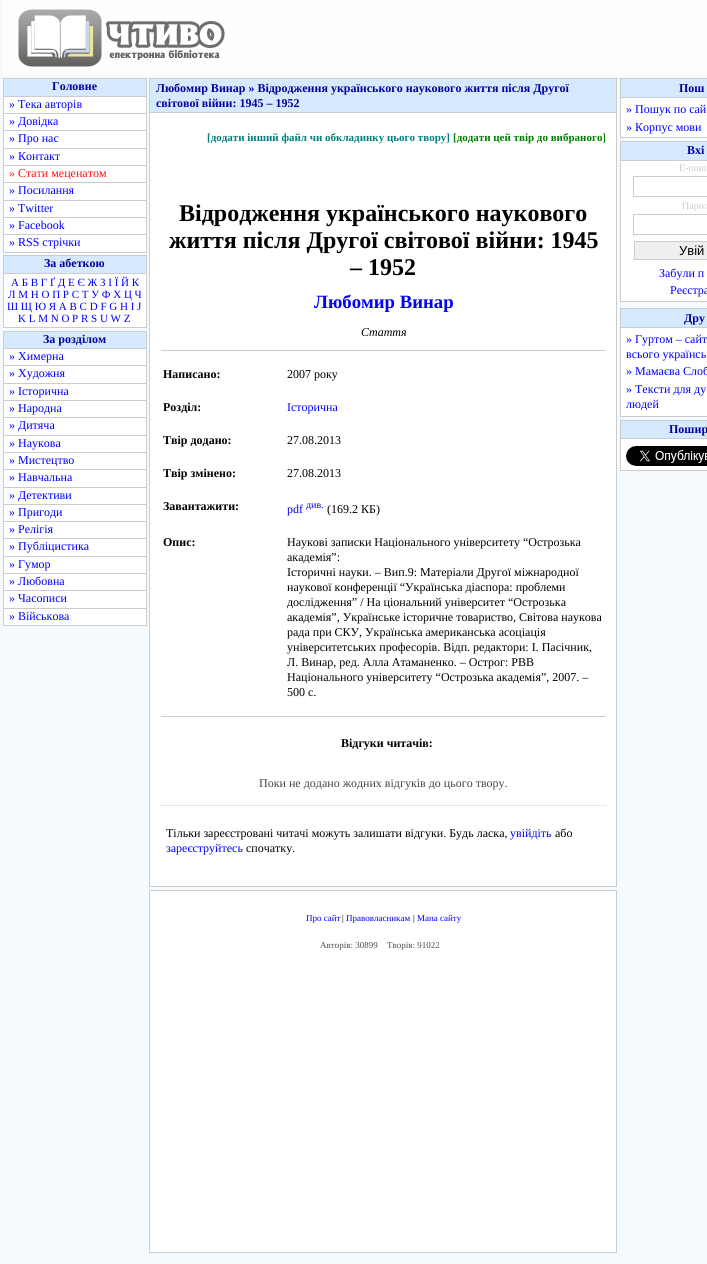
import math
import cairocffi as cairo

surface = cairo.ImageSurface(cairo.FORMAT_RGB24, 707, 1264)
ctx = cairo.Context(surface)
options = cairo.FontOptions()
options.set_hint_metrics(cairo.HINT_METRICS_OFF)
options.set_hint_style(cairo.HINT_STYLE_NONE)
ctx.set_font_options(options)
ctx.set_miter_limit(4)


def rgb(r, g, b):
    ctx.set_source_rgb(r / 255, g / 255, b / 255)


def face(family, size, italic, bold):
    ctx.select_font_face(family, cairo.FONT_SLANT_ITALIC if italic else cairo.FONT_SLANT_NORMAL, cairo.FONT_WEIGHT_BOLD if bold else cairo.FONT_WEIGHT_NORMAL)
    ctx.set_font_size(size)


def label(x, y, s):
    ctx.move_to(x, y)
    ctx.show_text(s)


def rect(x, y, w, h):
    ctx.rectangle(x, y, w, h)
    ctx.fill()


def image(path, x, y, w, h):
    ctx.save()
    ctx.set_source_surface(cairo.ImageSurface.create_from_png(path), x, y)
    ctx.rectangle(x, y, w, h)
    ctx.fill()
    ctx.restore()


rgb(244, 250, 254)
ctx.paint()
rgb(254, 254, 255)
rect(3, 0, 704, 76)
image('image0.png', 18, 9, 207, 58)
rgb(213, 234, 255)
ctx.rectangle(3.5, 78.5, 143, 18)
ctx.fill_preserve()
rgb(204, 204, 204)
ctx.set_line_width(1)
ctx.stroke()
face('Liberation Serif', 12, 0, 1)
rgb(0, 0, 160)
label(52, 90, 'Головне')
rgb(255, 255, 255)
rect(4, 97, 142, 16)
rgb(204, 204, 204)
rect(146, 97, 1, 156)
rect(3, 113, 144, 1)
rect(3, 97, 1, 17)
face('Liberation Serif', 12, 0, 0)
rgb(0, 0, 255)
label(9, 108, '» Тека авторів')
rgb(255, 255, 255)
rect(4, 114, 142, 16)
rgb(204, 204, 204)
rect(3, 130, 144, 1)
rect(3, 114, 1, 17)
rgb(0, 0, 255)
label(9, 125, '» Довідка')
rgb(255, 255, 255)
rect(4, 131, 142, 17)
rgb(204, 204, 204)
rect(3, 148, 144, 1)
rect(3, 131, 1, 18)
rgb(0, 0, 255)
label(9, 142, '» Про нас')
rgb(255, 255, 255)
rect(4, 149, 142, 16)
rgb(204, 204, 204)
rect(3, 165, 144, 1)
rect(3, 149, 1, 17)
rgb(0, 0, 255)
label(9, 160, '» Контакт')
rgb(255, 255, 255)
rect(4, 166, 142, 16)
rgb(204, 204, 204)
rect(3, 182, 144, 1)
rect(3, 166, 1, 17)
rgb(255, 17, 17)
label(9, 177, '» Стати меценатом')
rgb(255, 255, 255)
rect(4, 183, 142, 17)
rgb(204, 204, 204)
rect(3, 200, 144, 1)
rect(3, 183, 1, 18)
rgb(0, 0, 255)
label(9, 194, '» Посилання')
rgb(255, 255, 255)
rect(4, 201, 142, 16)
rgb(204, 204, 204)
rect(3, 217, 144, 1)
rect(3, 201, 1, 17)
rgb(0, 0, 255)
label(9, 212, '» Twitter')
rgb(255, 255, 255)
rect(4, 218, 142, 16)
rgb(204, 204, 204)
rect(3, 234, 144, 1)
rect(3, 218, 1, 17)
rgb(0, 0, 255)
label(9, 229, '» Facebook')
rgb(255, 255, 255)
rect(4, 235, 142, 17)
rgb(204, 204, 204)
rect(3, 252, 144, 1)
rect(3, 235, 1, 18)
rgb(0, 0, 255)
label(9, 246, '» RSS стрічки')
rgb(213, 234, 255)
ctx.rectangle(3.5, 255.5, 143, 18)
ctx.fill_preserve()
rgb(204, 204, 204)
ctx.stroke()
face('Liberation Serif', 12, 0, 1)
rgb(0, 0, 160)
label(44, 267, 'За абеткою')
rgb(255, 255, 255)
rect(4, 274, 142, 53)
rgb(204, 204, 204)
rect(146, 274, 1, 54)
rect(3, 327, 144, 1)
rect(3, 274, 1, 54)
face('Liberation Serif', 11, 0, 0)
rgb(0, 0, 255)
label(11, 286, 'А Б В Г Ґ Д Е Є Ж З І Ї Й К')
label(8, 298, 'Л М Н О П Р С Т У Ф Х Ц Ч')
label(7, 310, 'Ш Щ Ю Я A B C D F G H I J')
label(18, 322, 'K L M N O P R S U W Z')
rgb(213, 234, 255)
ctx.rectangle(3.5, 331.5, 143, 17)
ctx.fill_preserve()
rgb(204, 204, 204)
ctx.stroke()
face('Liberation Serif', 12, 0, 1)
rgb(0, 0, 160)
label(43, 343, 'За розділом')
rgb(255, 255, 255)
rect(4, 349, 142, 16)
rgb(204, 204, 204)
rect(146, 349, 1, 277)
rect(3, 365, 144, 1)
rect(3, 349, 1, 17)
face('Liberation Serif', 12, 0, 0)
rgb(0, 0, 255)
label(9, 360, '» Химерна')
rgb(255, 255, 255)
rect(4, 366, 142, 17)
rgb(204, 204, 204)
rect(3, 383, 144, 1)
rect(3, 366, 1, 18)
rgb(0, 0, 255)
label(9, 377, '» Художня')
rgb(255, 255, 255)
rect(4, 384, 142, 16)
rgb(204, 204, 204)
rect(3, 400, 144, 1)
rect(3, 384, 1, 17)
rgb(0, 0, 255)
label(9, 395, '» Історична')
rgb(255, 255, 255)
rect(4, 401, 142, 16)
rgb(204, 204, 204)
rect(3, 417, 144, 1)
rect(3, 401, 1, 17)
rgb(0, 0, 255)
label(9, 412, '» Народна')
rgb(255, 255, 255)
rect(4, 418, 142, 17)
rgb(204, 204, 204)
rect(3, 435, 144, 1)
rect(3, 418, 1, 18)
rgb(0, 0, 255)
label(9, 429, '» Дитяча')
rgb(255, 255, 255)
rect(4, 436, 142, 16)
rgb(204, 204, 204)
rect(3, 452, 144, 1)
rect(3, 436, 1, 17)
rgb(0, 0, 255)
label(9, 447, '» Наукова')
rgb(255, 255, 255)
rect(4, 453, 142, 16)
rgb(204, 204, 204)
rect(3, 469, 144, 1)
rect(3, 453, 1, 17)
rgb(0, 0, 255)
label(9, 464, '» Мистецтво')
rgb(255, 255, 255)
rect(4, 470, 142, 17)
rgb(204, 204, 204)
rect(3, 487, 144, 1)
rect(3, 470, 1, 18)
rgb(0, 0, 255)
label(9, 481, '» Навчальна')
rgb(255, 255, 255)
rect(4, 488, 142, 16)
rgb(204, 204, 204)
rect(3, 504, 144, 1)
rect(3, 488, 1, 17)
rgb(0, 0, 255)
label(9, 499, '» Детективи')
rgb(255, 255, 255)
rect(4, 505, 142, 16)
rgb(204, 204, 204)
rect(3, 521, 144, 1)
rect(3, 505, 1, 17)
rgb(0, 0, 255)
label(9, 516, '» Пригоди')
rgb(255, 255, 255)
rect(4, 522, 142, 16)
rgb(204, 204, 204)
rect(3, 538, 144, 1)
rect(3, 522, 1, 17)
rgb(0, 0, 255)
label(9, 533, '» Релігія')
rgb(255, 255, 255)
rect(4, 539, 142, 17)
rgb(204, 204, 204)
rect(3, 556, 144, 1)
rect(3, 539, 1, 18)
rgb(0, 0, 255)
label(9, 550, '» Публіцистика')
rgb(255, 255, 255)
rect(4, 557, 142, 16)
rgb(204, 204, 204)
rect(3, 573, 144, 1)
rect(3, 557, 1, 17)
rgb(0, 0, 255)
label(9, 568, '» Гумор')
rgb(255, 255, 255)
rect(4, 574, 142, 16)
rgb(204, 204, 204)
rect(3, 590, 144, 1)
rect(3, 574, 1, 17)
rgb(0, 0, 255)
label(9, 585, '» Любовна')
rgb(255, 255, 255)
rect(4, 591, 142, 17)
rgb(204, 204, 204)
rect(3, 608, 144, 1)
rect(3, 591, 1, 18)
rgb(0, 0, 255)
label(9, 602, '» Часописи')
rgb(255, 255, 255)
rect(4, 609, 142, 16)
rgb(204, 204, 204)
rect(3, 625, 144, 1)
rect(3, 609, 1, 17)
rgb(0, 0, 255)
label(9, 620, '» Військова')
rgb(255, 255, 255)
rect(150, 113, 466, 773)
ctx.rectangle(149.5, 78.5, 467, 808)
rgb(204, 204, 204)
ctx.stroke()
rgb(213, 234, 255)
rect(150, 79, 466, 33)
rgb(204, 204, 204)
rect(150, 112, 466, 1)
face('Liberation Serif', 12, 0, 1)
rgb(0, 0, 160)
label(156, 92, 'Любомир Винар » Відродження українського наукового життя після Другої')
label(156, 107, 'світової війни: 1945 – 1952')
face('Liberation Serif', 11, 0, 1)
rgb(0, 128, 128)
label(207, 141, '[додати інший файл чи обкладинку цього твору]')
rgb(0, 128, 0)
label(453, 141, '[додати цей твір до вибраного]')
face('Liberation Serif', 24, 0, 1)
rgb(0, 0, 0)
label(179, 221, 'Відродження українського наукового')
label(169, 248, 'життя після Другої світової війни: 1945')
label(350, 275, '– 1952')
face('Liberation Serif', 18.75, 0, 1)
rgb(0, 0, 255)
label(314, 308, 'Любомир Винар')
face('Liberation Serif', 12, 1, 0)
rgb(0, 0, 0)
label(361, 336, 'Стаття')
rgb(204, 204, 204)
rect(161, 350, 445, 1)
face('Liberation Serif', 12, 0, 1)
rgb(0, 0, 0)
label(163, 378, 'Написано:')
face('Liberation Serif', 12, 0, 0)
label(287, 378, '2007 року')
face('Liberation Serif', 12, 0, 1)
label(163, 411, 'Розділ:')
face('Liberation Serif', 12, 0, 0)
rgb(0, 0, 255)
label(287, 411, 'Історична')
face('Liberation Serif', 12, 0, 1)
rgb(0, 0, 0)
label(163, 444, 'Твір додано:')
face('Liberation Serif', 12, 0, 0)
label(287, 444, '27.08.2013')
face('Liberation Serif', 12, 0, 1)
label(163, 477, 'Твір змінено:')
face('Liberation Serif', 12, 0, 0)
label(287, 477, '27.08.2013')
face('Liberation Serif', 12, 0, 1)
label(163, 510, 'Завантажити:')
face('Liberation Serif', 12, 0, 0)
rgb(0, 0, 255)
label(287, 513, 'pdf')
face('Liberation Serif', 10, 0, 0)
label(306, 508, 'див.')
face('Liberation Serif', 12, 0, 0)
rgb(0, 0, 0)
label(327, 513, '(169.2 КБ)')
face('Liberation Serif', 12, 0, 1)
label(163, 546, 'Опис:')
face('Liberation Serif', 12, 0, 0)
label(287, 546, 'Наукові записки Національного університету “Острозька')
label(287, 561, 'академія”:')
label(287, 576, 'Історичні науки. – Вип.9: Матеріали Другої міжнародної')
label(287, 591, 'наукової конференції “Українська діаспора: проблеми')
label(287, 606, 'дослідження” / На ціональний університет “Острозька')
label(287, 621, 'академія”, Українське історичне товариство, Світова наукова')
label(287, 636, 'рада при СКУ, Українська американська асоціація')
label(287, 651, 'університетських професорів. Відп. редактори: І. Пасічник,')
label(287, 666, 'Л. Винар, ред. Алла Атаманенко. – Острог: РВВ')
label(287, 681, 'Національного університету “Острозька академія”, 2007. –')
label(287, 696, '500 с.')
rgb(204, 204, 204)
rect(161, 716, 445, 1)
face('Liberation Serif', 12, 0, 1)
rgb(0, 0, 0)
label(341, 747, 'Відгуки читачів:')
ctx.new_path()
ctx.move_to(161, 805.5)
ctx.line_to(606, 805.5)
rgb(204, 204, 204)
ctx.set_dash([1, 1])
ctx.stroke()
face('Liberation Serif', 12, 0, 0)
rgb(68, 68, 68)
label(259, 787, 'Поки не додано жодних відгуків до цього твору.')
rgb(0, 0, 0)
label(166, 837, 'Тільки зареєстровані читачі можуть залишати відгуки. Будь ласка,')
rgb(0, 0, 255)
label(510, 837, 'увійдіть')
rgb(0, 0, 0)
label(555, 837, 'або')
rgb(0, 0, 255)
label(166, 852, 'зареєструйтесь')
rgb(0, 0, 0)
label(246, 852, 'спочатку.')
rgb(213, 234, 255)
ctx.rectangle(620.5, 78.5, 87, 19)
ctx.fill_preserve()
rgb(204, 204, 204)
ctx.set_dash([])
ctx.stroke()
face('Liberation Serif', 12, 0, 1)
rgb(0, 0, 160)
label(679, 92, 'Пош')
rgb(255, 255, 255)
rect(621, 98, 86, 39)
rgb(204, 204, 204)
rect(620, 137, 87, 1)
rect(620, 98, 1, 40)
face('Liberation Serif', 12, 0, 0)
rgb(0, 0, 255)
label(626, 113, '» Пошук по сай')
label(626, 131, '» Корпус мови')
rgb(213, 234, 255)
ctx.rectangle(620.5, 141.5, 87, 19)
ctx.fill_preserve()
rgb(204, 204, 204)
ctx.stroke()
face('Liberation Serif', 12, 0, 1)
rgb(0, 0, 160)
label(687, 154, 'Вхі')
rgb(255, 255, 255)
rect(621, 161, 86, 140)
rgb(204, 204, 204)
rect(620, 301, 87, 1)
rect(620, 161, 1, 141)
face('Liberation Serif', 10, 0, 0)
label(679, 171, 'Е-пош')
ctx.rectangle(633.5, 176.5, 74, 20)
ctx.stroke()
label(682, 209, 'Парол')
ctx.rectangle(633.5, 214.5, 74, 20)
ctx.stroke()
rgb(239, 239, 239)
ctx.rectangle(634.5, 241.5, 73, 18)
ctx.fill_preserve()
rgb(204, 204, 204)
ctx.stroke()
face('Liberation Sans', 13, 0, 0)
rgb(0, 0, 0)
label(679, 255, 'Увій')
face('Liberation Serif', 12, 0, 0)
rgb(0, 0, 255)
label(659, 277, 'Забули п')
label(670, 294, 'Реєстра')
rgb(213, 234, 255)
ctx.rectangle(620.5, 308.5, 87, 19)
ctx.fill_preserve()
rgb(204, 204, 204)
ctx.stroke()
face('Liberation Serif', 12, 0, 1)
rgb(0, 0, 160)
label(684, 322, 'Дру')
rgb(255, 255, 255)
rect(621, 328, 86, 88)
rgb(204, 204, 204)
rect(620, 416, 87, 1)
rect(620, 328, 1, 89)
face('Liberation Serif', 12, 0, 0)
rgb(0, 0, 255)
label(626, 343, '» Гуртом – сайт')
label(626, 358, 'всього українсь')
label(626, 375, '» Мамаєва Слоб')
label(626, 393, '» Тексти для ду')
label(626, 408, 'людей')
rgb(213, 234, 255)
ctx.rectangle(620.5, 420.5, 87, 18)
ctx.fill_preserve()
rgb(204, 204, 204)
ctx.stroke()
face('Liberation Serif', 12, 0, 1)
rgb(0, 0, 160)
label(669, 433, 'Пошир')
rgb(255, 255, 255)
rect(621, 439, 86, 31)
rgb(204, 204, 204)
rect(620, 470, 87, 1)
rect(620, 439, 1, 32)
image('image1.png', 626, 446, 81, 20)
rgb(255, 255, 255)
ctx.rectangle(149.5, 890.5, 467, 362)
ctx.fill_preserve()
rgb(204, 204, 204)
ctx.stroke()
face('Liberation Serif', 9, 0, 0)
rgb(0, 0, 255)
label(306, 921, 'Про сайт')
rgb(0, 0, 0)
label(342, 921, '|')
rgb(0, 0, 255)
label(346, 921, 'Правовласникам')
rgb(0, 0, 0)
label(413, 921, '|')
rgb(0, 0, 255)
label(417, 921, 'Мапа сайту')
rgb(77, 77, 77)
label(320, 948, 'Авторів: 30899')
label(387, 948, 'Творів: 91022')
surface.write_to_png('render.png')
